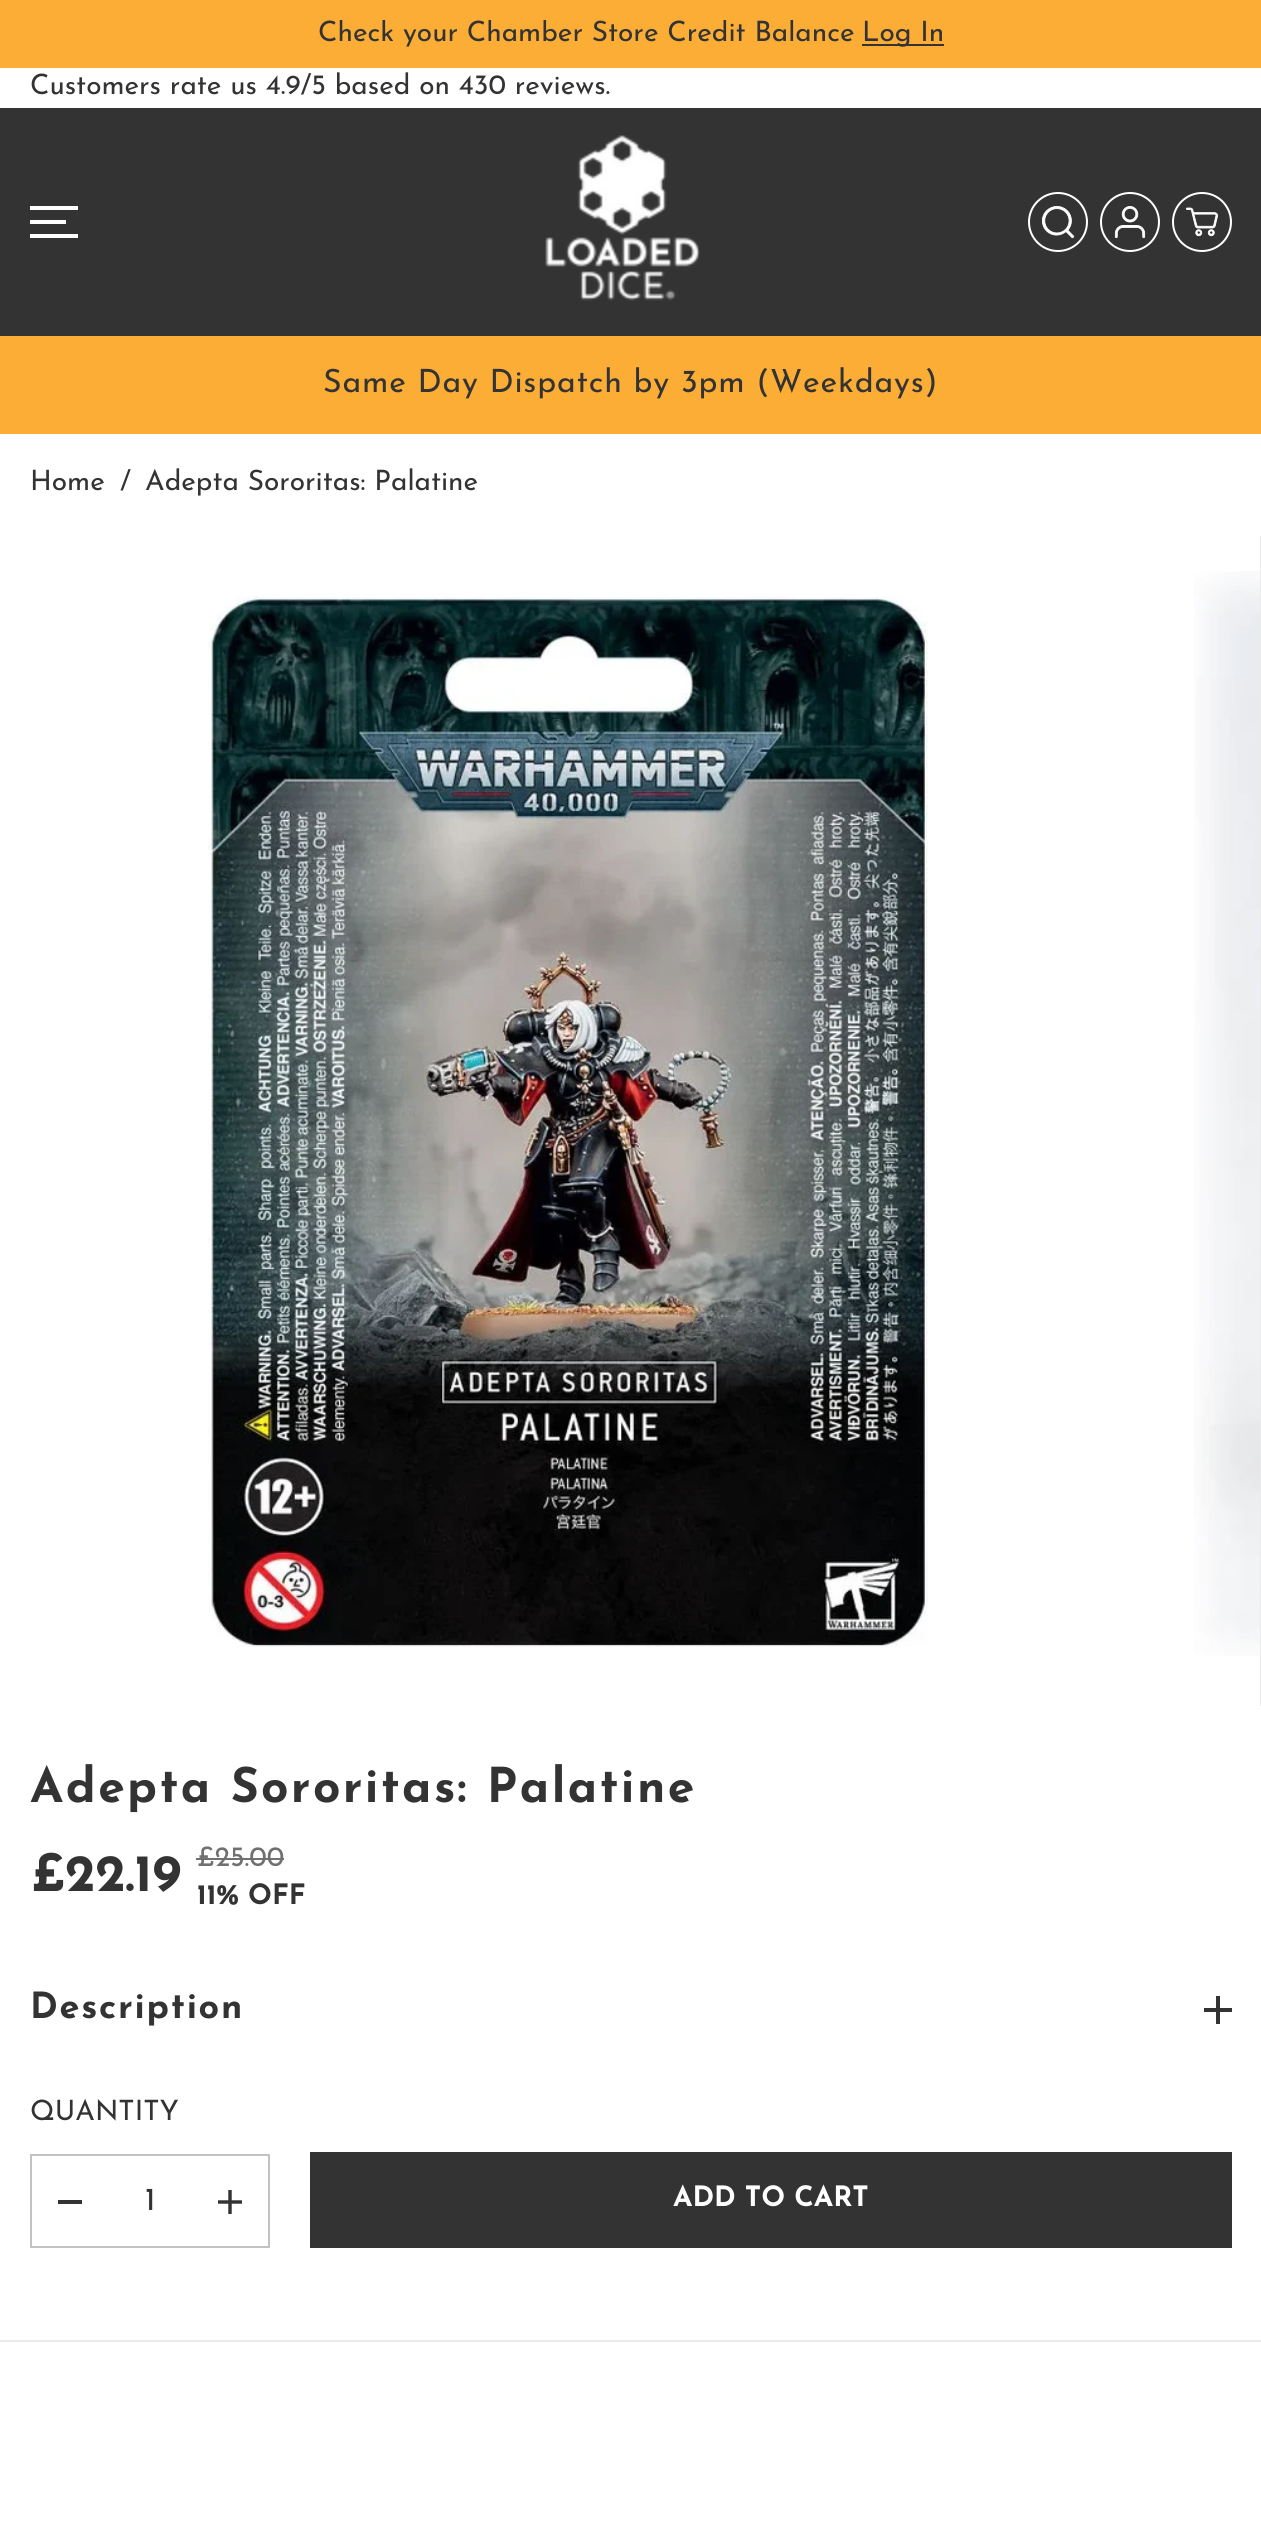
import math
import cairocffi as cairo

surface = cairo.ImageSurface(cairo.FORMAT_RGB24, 1261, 2523)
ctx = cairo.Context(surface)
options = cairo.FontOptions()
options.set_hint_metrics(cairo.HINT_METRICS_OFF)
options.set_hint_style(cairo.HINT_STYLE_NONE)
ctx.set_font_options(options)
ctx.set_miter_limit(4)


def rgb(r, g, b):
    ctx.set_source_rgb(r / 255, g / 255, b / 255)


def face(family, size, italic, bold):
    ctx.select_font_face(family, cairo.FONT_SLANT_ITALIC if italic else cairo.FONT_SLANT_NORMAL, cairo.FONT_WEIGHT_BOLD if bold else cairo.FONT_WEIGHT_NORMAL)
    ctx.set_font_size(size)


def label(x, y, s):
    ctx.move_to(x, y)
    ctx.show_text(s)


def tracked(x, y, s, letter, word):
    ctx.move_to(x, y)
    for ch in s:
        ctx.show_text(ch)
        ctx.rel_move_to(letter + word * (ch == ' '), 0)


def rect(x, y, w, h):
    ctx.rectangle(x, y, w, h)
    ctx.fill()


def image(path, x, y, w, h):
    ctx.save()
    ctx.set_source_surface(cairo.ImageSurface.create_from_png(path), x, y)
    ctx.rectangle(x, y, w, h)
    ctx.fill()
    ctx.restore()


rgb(255, 255, 255)
ctx.paint()
rgb(251, 173, 54)
rect(0, 0, 1261, 68)
ctx.save()
ctx.rectangle(318, 20, 536, 30)
ctx.clip()
face('Josefin Sans', 28, 0, 0)
rgb(51, 51, 51)
label(318, 41, 'Check your Chamber Store Credit Balance')
ctx.restore()
rgb(51, 51, 51)
rect(862, 44, 82, 2)
face('Josefin Sans', 28, 0, 0)
label(862, 41, 'Log In')
label(30, 94, 'Customers rate us 4.9/5 based on 430 reviews.')
rect(0, 108, 1261, 228)
rgb(255, 255, 255)
rect(30, 220, 36, 4)
rect(30, 206, 48, 4)
rect(30, 234, 48, 4)
image('image0.png', 545, 135, 155, 166)
ctx.arc(1058, 222, 29, 0, 2 * math.pi)
ctx.stroke()
image('image1.png', 1041, 206, 34, 33)
ctx.arc(1130, 222, 29, 0, 2 * math.pi)
ctx.stroke()
image('image2.png', 1114, 206, 32, 33)
ctx.arc(1202, 222, 29, 0, 2 * math.pi)
ctx.stroke()
image('image3.png', 1185, 207, 33, 30)
rgb(251, 173, 54)
rect(0, 336, 1261, 98)
face('Josefin Sans', 32, 0, 0)
rgb(51, 51, 51)
tracked(323, 392, 'Same Day Dispatch by 3pm (Weekdays)', 0.8, 0)
face('Josefin Sans', 28, 0, 0)
label(30, 490, 'Home')
label(120, 490, '/')
label(145, 490, 'Adepta Sororitas: Palatine')
rgb(235, 235, 235)
rect(0, 2340, 1261, 2)
rect(1260, 536, 1, 1170)
image('image4.png', 208, 596, 720, 1051)
image('image5.png', 1194, 571, 66, 1085)
face('Josefin Sans', 48, 0, 1)
rgb(51, 51, 51)
tracked(30, 1802, 'Adepta Sororitas: Palatine', 2.4, 0)
face('Josefin Sans', 52, 0, 1)
label(30, 1891, '£22.19')
face('Josefin Sans', 28, 0, 0)
rgb(112, 112, 112)
label(197, 1866, '£25.00')
rect(196, 1858, 88, 2)
face('Josefin Sans', 28, 0, 1)
rgb(51, 51, 51)
label(197, 1904, '11% OFF')
face('Josefin Sans', 36, 0, 1)
tracked(30, 2018, 'Description', 1.75, 0)
rect(1216, 1996, 4, 28)
rect(1204, 2008, 28, 4)
face('Josefin Sans', 28, 0, 0)
label(30, 2120, 'QUANTITY')
ctx.rectangle(31, 2155, 238, 92)
rgb(194, 194, 194)
ctx.stroke()
rgb(51, 51, 51)
rect(58, 2200, 24, 4)
face('Josefin Sans', 32, 0, 0)
label(145, 2210, '1')
image('image6.png', 218, 2190, 24, 24)
rect(310, 2152, 922, 96)
face('Josefin Sans', 28, 0, 1)
rgb(255, 255, 255)
label(673, 2206, 'ADD TO CART')
surface.write_to_png('render.png')
